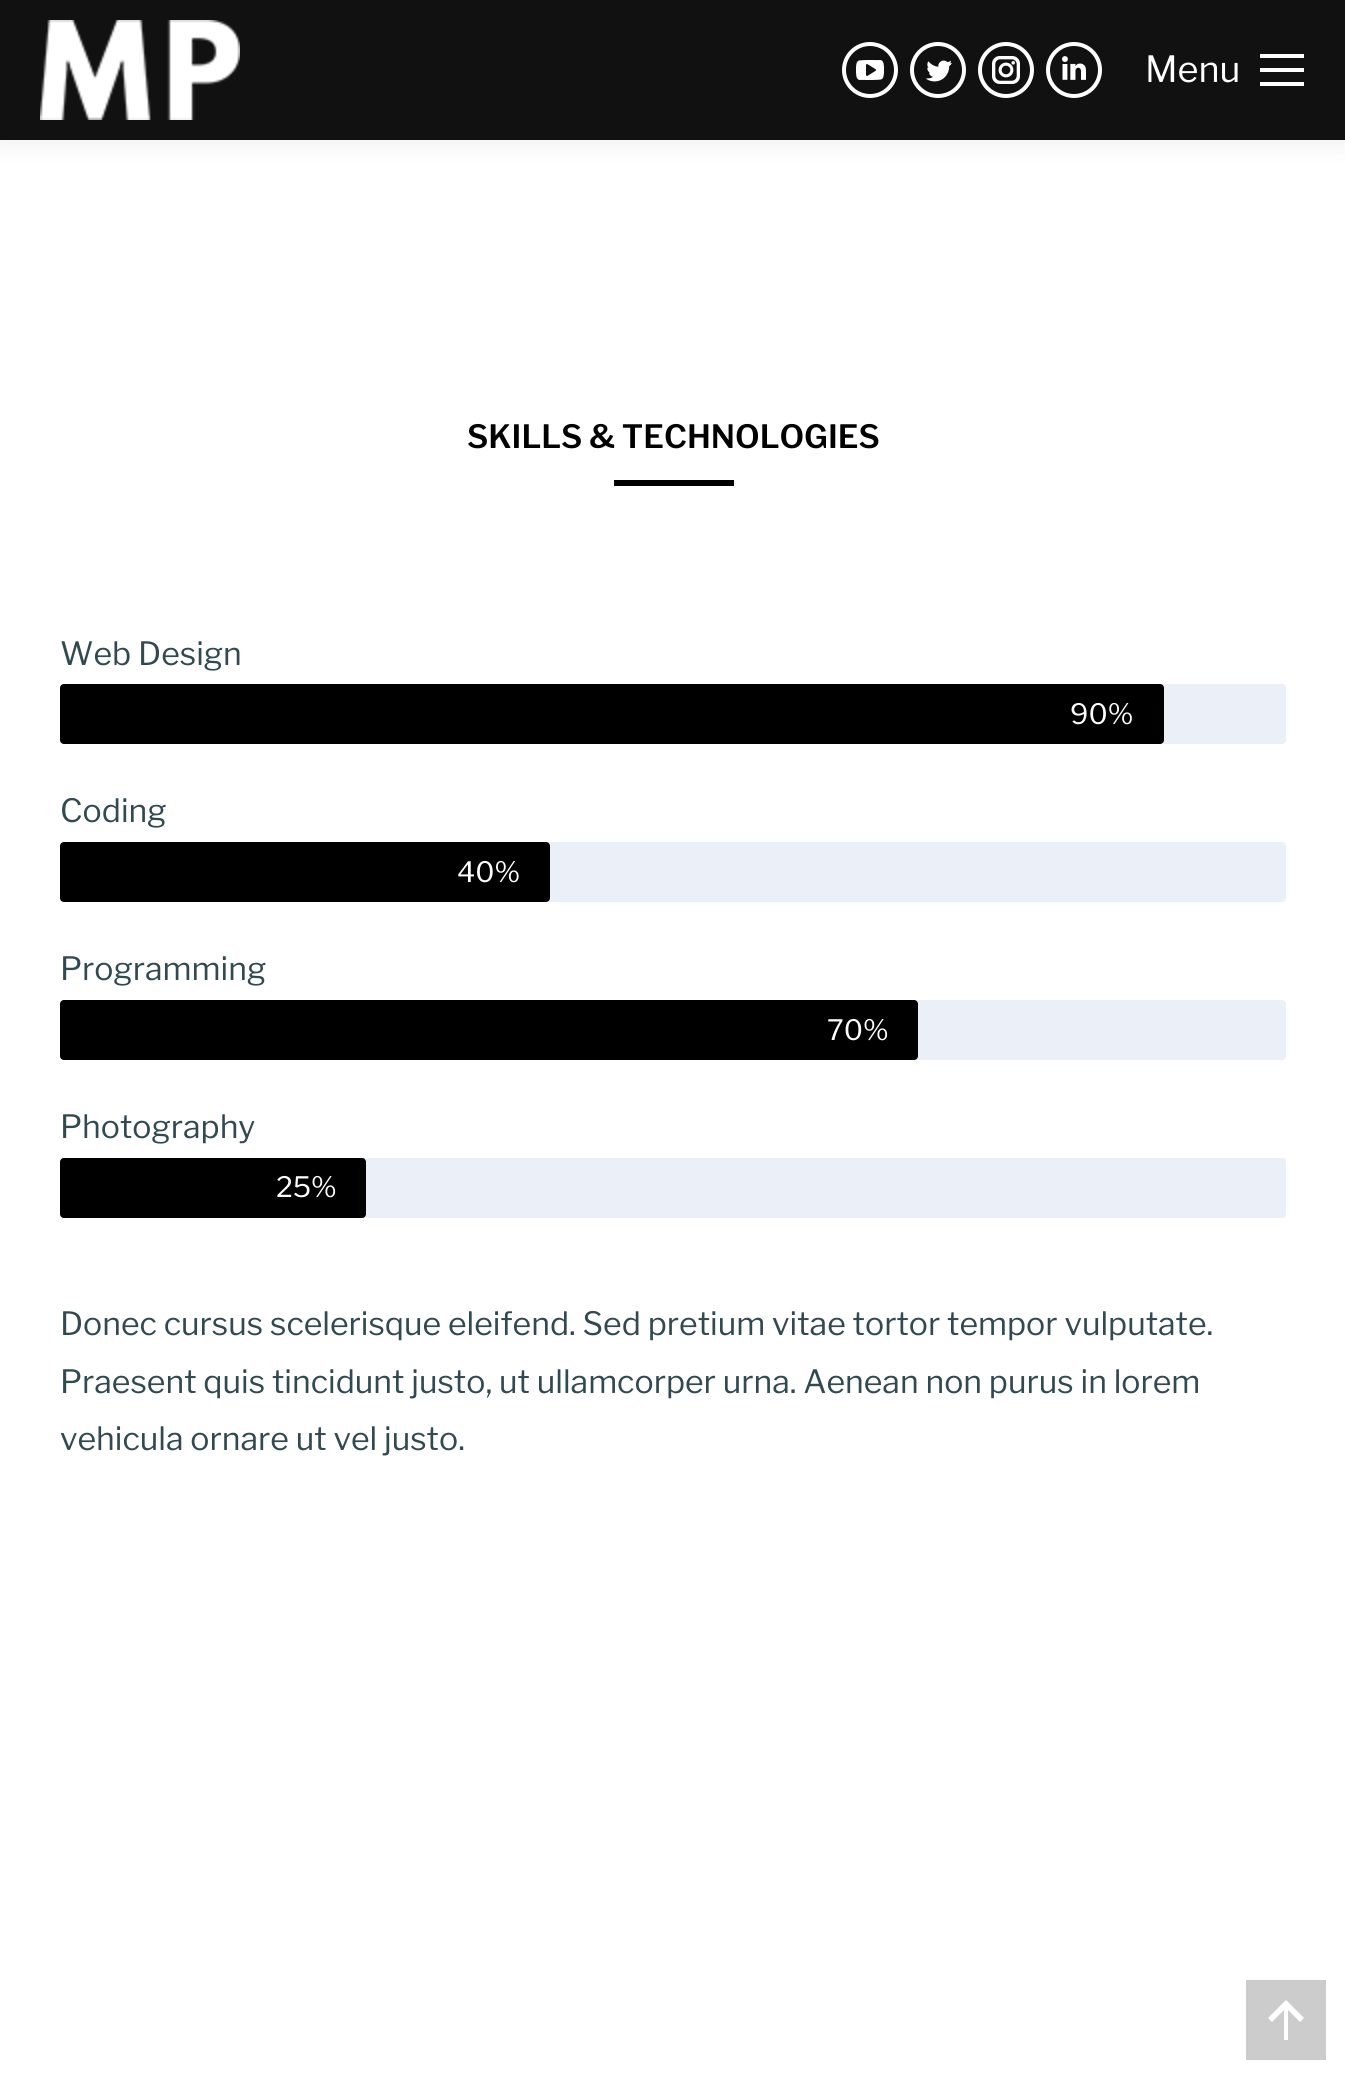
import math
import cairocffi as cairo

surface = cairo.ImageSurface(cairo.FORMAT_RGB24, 1345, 2079)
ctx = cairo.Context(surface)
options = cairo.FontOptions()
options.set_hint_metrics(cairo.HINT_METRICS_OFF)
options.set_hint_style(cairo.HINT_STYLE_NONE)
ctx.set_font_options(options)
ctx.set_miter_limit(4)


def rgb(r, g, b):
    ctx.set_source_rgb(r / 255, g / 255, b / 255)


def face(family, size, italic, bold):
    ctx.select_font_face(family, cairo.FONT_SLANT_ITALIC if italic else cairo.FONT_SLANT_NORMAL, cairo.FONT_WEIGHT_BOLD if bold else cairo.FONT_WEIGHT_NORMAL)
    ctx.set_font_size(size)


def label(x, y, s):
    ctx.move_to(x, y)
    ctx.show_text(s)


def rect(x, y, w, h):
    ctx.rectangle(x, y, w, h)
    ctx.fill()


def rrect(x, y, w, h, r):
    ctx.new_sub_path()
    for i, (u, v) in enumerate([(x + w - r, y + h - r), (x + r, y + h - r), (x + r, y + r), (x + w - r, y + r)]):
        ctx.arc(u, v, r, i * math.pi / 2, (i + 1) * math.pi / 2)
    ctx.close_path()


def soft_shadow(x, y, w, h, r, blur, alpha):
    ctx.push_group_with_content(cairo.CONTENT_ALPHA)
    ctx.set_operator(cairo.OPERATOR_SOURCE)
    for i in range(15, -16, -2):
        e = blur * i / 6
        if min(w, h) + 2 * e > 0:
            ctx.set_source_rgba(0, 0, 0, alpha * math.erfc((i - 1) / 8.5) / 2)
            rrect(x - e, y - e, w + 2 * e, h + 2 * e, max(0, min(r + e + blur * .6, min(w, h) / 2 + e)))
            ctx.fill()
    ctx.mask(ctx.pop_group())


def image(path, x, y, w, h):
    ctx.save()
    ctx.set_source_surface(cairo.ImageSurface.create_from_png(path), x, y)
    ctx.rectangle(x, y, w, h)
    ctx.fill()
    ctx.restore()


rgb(255, 255, 255)
ctx.paint()
rgb(0, 0, 0)
soft_shadow(-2, -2, 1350, 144, 0, 15, 0.07)
rgb(17, 17, 17)
rect(0, 0, 1345, 140)
image('image0.png', 40, 20, 200, 100)
ctx.arc(870, 70, 26, 0, 2 * math.pi)
rgb(255, 255, 255)
ctx.set_line_width(4)
ctx.stroke()
image('image1.png', 856, 60, 28, 20)
ctx.arc(938, 70, 26, 0, 2 * math.pi)
ctx.stroke()
image('image2.png', 926, 60, 26, 22)
ctx.arc(1006, 70, 26, 0, 2 * math.pi)
ctx.stroke()
image('image3.png', 992, 56, 28, 28)
ctx.arc(1074, 70, 26, 0, 2 * math.pi)
ctx.stroke()
image('image4.png', 1062, 56, 24, 24)
face('Libre Franklin', 36, 0, 0)
label(1145, 82, 'Menu')
rect(1260, 54, 44, 4)
rect(1260, 68, 44, 4)
rect(1260, 82, 44, 4)
face('Libre Franklin SemiBold', 32, 0, 0)
rgb(0, 0, 0)
label(467, 448, 'SKILLS & TECHNOLOGIES')
rect(614, 480, 120, 6)
face('Libre Franklin', 32, 0, 0)
rgb(49, 73, 81)
label(60, 665, 'Web Design')
rgb(234, 239, 248)
rrect(60, 684, 1226, 60, 4)
ctx.fill()
rgb(0, 0, 0)
rrect(60, 684, 1104, 60, 4)
ctx.fill()
face('Libre Franklin', 28, 0, 0)
rgb(255, 255, 255)
label(1070, 724, '90%')
face('Libre Franklin', 32, 0, 0)
rgb(49, 73, 81)
label(60, 822, 'Coding')
rgb(234, 239, 248)
rrect(60, 842, 1226, 60, 4)
ctx.fill()
rgb(0, 0, 0)
rrect(60, 842, 490, 60, 4)
ctx.fill()
face('Libre Franklin', 28, 0, 0)
rgb(255, 255, 255)
label(457, 882, '40%')
face('Libre Franklin', 32, 0, 0)
rgb(49, 73, 81)
label(60, 980, 'Programming')
rgb(234, 239, 248)
rrect(60, 1000, 1226, 60, 4)
ctx.fill()
rgb(0, 0, 0)
rrect(60, 1000, 858, 60, 4)
ctx.fill()
face('Libre Franklin', 28, 0, 0)
rgb(255, 255, 255)
label(827, 1040, '70%')
face('Libre Franklin', 32, 0, 0)
rgb(49, 73, 81)
label(60, 1138, 'Photography')
rgb(234, 239, 248)
rrect(60, 1158, 1226, 60, 4)
ctx.fill()
rgb(0, 0, 0)
rrect(60, 1158, 306, 60, 4)
ctx.fill()
face('Libre Franklin', 28, 0, 0)
rgb(255, 255, 255)
label(276, 1197, '25%')
face('Libre Franklin', 32, 0, 0)
rgb(49, 73, 81)
label(60, 1335, 'Donec cursus scelerisque eleifend. Sed pretium vitae tortor tempor vulputate.')
label(60, 1393, 'Praesent quis tincidunt justo, ut ullamcorper urna. Aenean non purus in lorem')
label(60, 1450, 'vehicula ornare ut vel justo.')
rgb(204, 204, 204)
rect(1246, 1980, 80, 80)
rgb(255, 255, 255)
ctx.new_path()
ctx.move_to(1268, 2018)
ctx.line_to(1272, 2022)
ctx.line_to(1284, 2010)
ctx.line_to(1284, 2040)
ctx.line_to(1288, 2040)
ctx.line_to(1288, 2010)
ctx.line_to(1300, 2022)
ctx.line_to(1304, 2018)
ctx.line_to(1286, 2000)
ctx.close_path()
ctx.fill()
surface.write_to_png('render.png')
